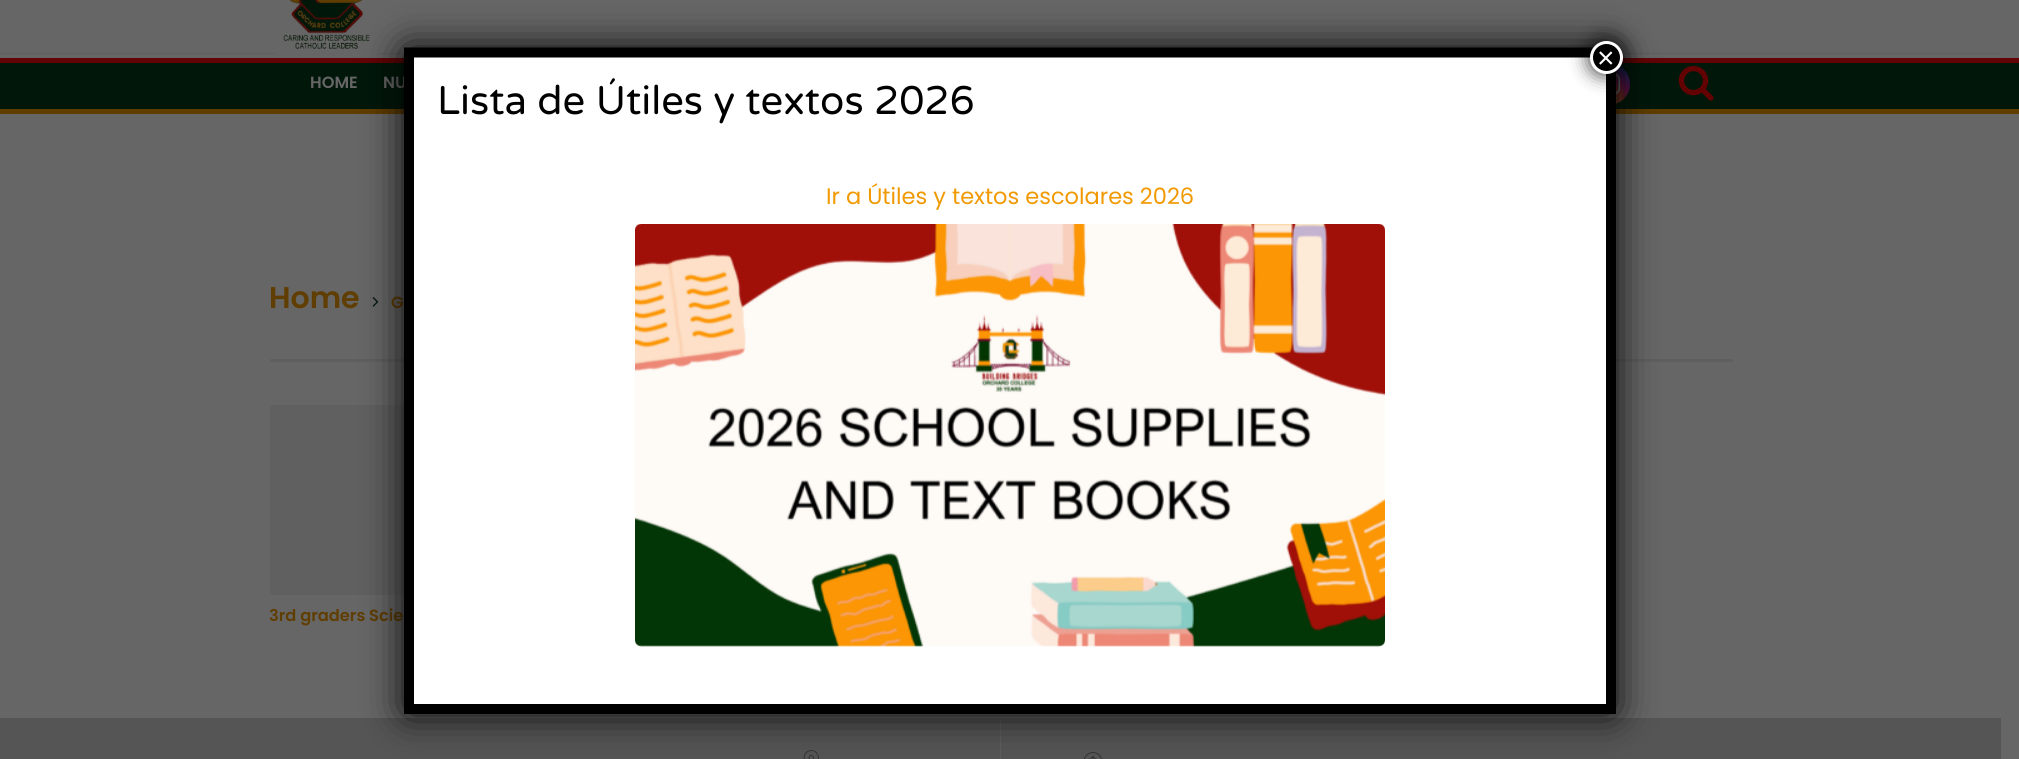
import math
import cairocffi as cairo

surface = cairo.ImageSurface(cairo.FORMAT_RGB24, 2019, 759)
ctx = cairo.Context(surface)
options = cairo.FontOptions()
options.set_hint_metrics(cairo.HINT_METRICS_OFF)
options.set_hint_style(cairo.HINT_STYLE_NONE)
ctx.set_font_options(options)
ctx.set_miter_limit(4)


def rgb(r, g, b):
    ctx.set_source_rgb(r / 255, g / 255, b / 255)


def face(family, size, italic, bold):
    ctx.select_font_face(family, cairo.FONT_SLANT_ITALIC if italic else cairo.FONT_SLANT_NORMAL, cairo.FONT_WEIGHT_BOLD if bold else cairo.FONT_WEIGHT_NORMAL)
    ctx.set_font_size(size)


def label(x, y, s):
    ctx.move_to(x, y)
    ctx.show_text(s)


def rect(x, y, w, h):
    ctx.rectangle(x, y, w, h)
    ctx.fill()


def rrect(x, y, w, h, r):
    ctx.new_sub_path()
    for i, (u, v) in enumerate([(x + w - r, y + h - r), (x + r, y + h - r), (x + r, y + r), (x + w - r, y + r)]):
        ctx.arc(u, v, r, i * math.pi / 2, (i + 1) * math.pi / 2)
    ctx.close_path()


def soft_shadow(x, y, w, h, r, blur, alpha):
    ctx.push_group_with_content(cairo.CONTENT_ALPHA)
    ctx.set_operator(cairo.OPERATOR_SOURCE)
    for i in range(15, -16, -2):
        e = blur * i / 6
        if min(w, h) + 2 * e > 0:
            ctx.set_source_rgba(0, 0, 0, alpha * math.erfc((i - 1) / 8.5) / 2)
            rrect(x - e, y - e, w + 2 * e, h + 2 * e, max(0, min(r + e + blur * .6, min(w, h) / 2 + e)))
            ctx.fill()
    ctx.mask(ctx.pop_group())


def image(path, x, y, w, h):
    ctx.save()
    ctx.set_source_surface(cairo.ImageSurface.create_from_png(path), x, y)
    ctx.rectangle(x, y, w, h)
    ctx.fill()
    ctx.restore()


rgb(102, 102, 102)
ctx.paint()
rgb(95, 95, 95)
rect(0, 53, 2001, 1)
image('image0.png', 275, 0, 105, 54)
rgb(1, 23, 10)
rect(0, 63, 2019, 46)
rgb(99, 2, 3)
rect(0, 58, 2019, 5)
rgb(96, 61, 0)
rect(0, 109, 2019, 5)
face('Poppins SemiBold', 16.25, 0, 0)
rgb(102, 102, 102)
label(310, 88, 'HOME')
label(383, 88, 'NU')
gradient = cairo.RadialGradient(1600, 108, 0, 1600, 108, 54)
gradient.add_color_stop_rgba(0, 0.396, 0.384, 0.235, 1)
gradient.add_color_stop_rgba(0.05, 0.396, 0.384, 0.235, 1)
gradient.add_color_stop_rgba(0.45, 0.396, 0.141, 0.114, 1)
gradient.add_color_stop_rgba(0.6, 0.337, 0.055, 0.251, 1)
gradient.add_color_stop_rgba(0.9, 0.063, 0.141, 0.369, 1)
ctx.set_source(gradient)
ctx.new_path()
ctx.arc(1609, 84, 21, 0, 2 * math.pi)
ctx.fill()
image('image1.png', 1616, 73, 5, 22)
image('image2.png', 1678, 65, 36, 36)
rgb(95, 95, 95)
rect(270, 359, 1463, 3)
face('Poppins SemiBold', 30, 0, 0)
rgb(96, 61, 0)
label(269, 308, 'Home')
image('image3.png', 372, 297, 7, 10)
face('Poppins SemiBold', 16.25, 0, 0)
label(391, 308, 'G')
rgb(96, 96, 96)
rect(270, 405, 134, 190)
rgb(96, 61, 0)
label(269, 621, '3rd graders Scie')
rgb(85, 85, 85)
rect(0, 718, 2001, 41)
rgb(94, 94, 94)
rect(1000, 718, 1, 41)
image('image4.png', 803, 750, 16, 9)
image('image5.png', 1084, 752, 18, 7)
rgb(2, 2, 2)
soft_shadow(404, 48, 1212, 666, 4, 19, 1)
rgb(255, 255, 255)
rect(414, 57, 1192, 647)
ctx.new_path()
ctx.move_to(409, 52.5)
ctx.line_to(1611, 52.5)
ctx.line_to(1611, 709)
ctx.line_to(409, 709)
ctx.close_path()
rgb(0, 0, 0)
ctx.set_line_width(10)
ctx.stroke()
rgb(2, 2, 2)
soft_shadow(1589, 40, 35, 35, 17.5, 9.5, 0.75)
rgb(0, 0, 0)
ctx.arc(1606.5, 57.5, 15, 0, 2 * math.pi)
ctx.fill_preserve()
rgb(255, 255, 255)
ctx.set_line_width(3)
ctx.stroke()
face('Liberation Sans', 30, 0, 0)
label(1597, 68, '×')
face('Varela Round', 40, 0, 0)
rgb(0, 0, 0)
label(437, 114, 'Lista de Útiles y textos 2026')
face('Poppins', 22.5, 0, 0)
rgb(241, 153, 1)
label(826, 204, 'Ir a Útiles y textos escolares 2026')
image('image6.png', 635, 224, 750, 423)
surface.write_to_png('render.png')
